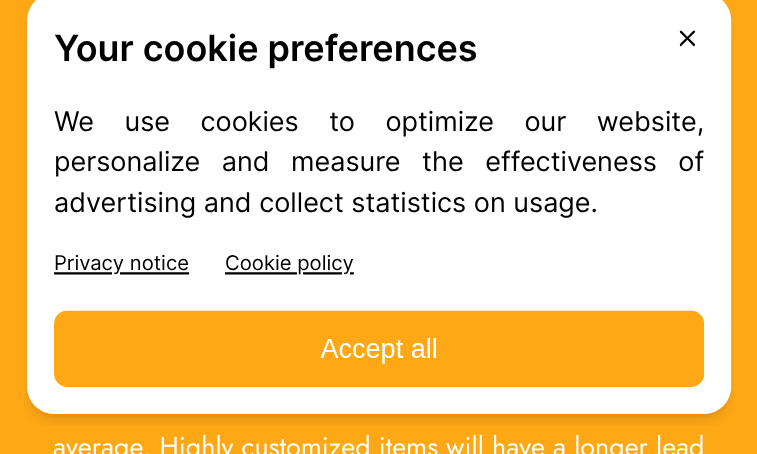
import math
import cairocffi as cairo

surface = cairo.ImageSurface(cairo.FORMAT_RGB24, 757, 454)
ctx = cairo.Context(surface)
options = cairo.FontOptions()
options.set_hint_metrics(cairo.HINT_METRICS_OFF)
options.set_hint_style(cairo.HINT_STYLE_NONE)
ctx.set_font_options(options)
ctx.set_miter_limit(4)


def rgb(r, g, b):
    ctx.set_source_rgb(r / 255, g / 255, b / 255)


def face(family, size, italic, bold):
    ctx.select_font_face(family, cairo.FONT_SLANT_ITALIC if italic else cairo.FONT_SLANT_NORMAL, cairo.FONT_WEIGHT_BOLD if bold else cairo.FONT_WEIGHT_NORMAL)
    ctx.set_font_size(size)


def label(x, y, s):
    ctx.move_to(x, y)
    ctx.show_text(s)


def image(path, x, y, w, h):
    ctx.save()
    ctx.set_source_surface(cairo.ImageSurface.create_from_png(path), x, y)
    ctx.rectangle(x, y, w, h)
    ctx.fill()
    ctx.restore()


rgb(255, 168, 21)
ctx.paint()
image('image0.png', 24, 0, 710, 426)
face('Jost', 27, 0, 0)
rgb(255, 255, 255)
label(53, 456, 'average. Highly customized items will have a longer lead')
surface.write_to_png('render.png')
